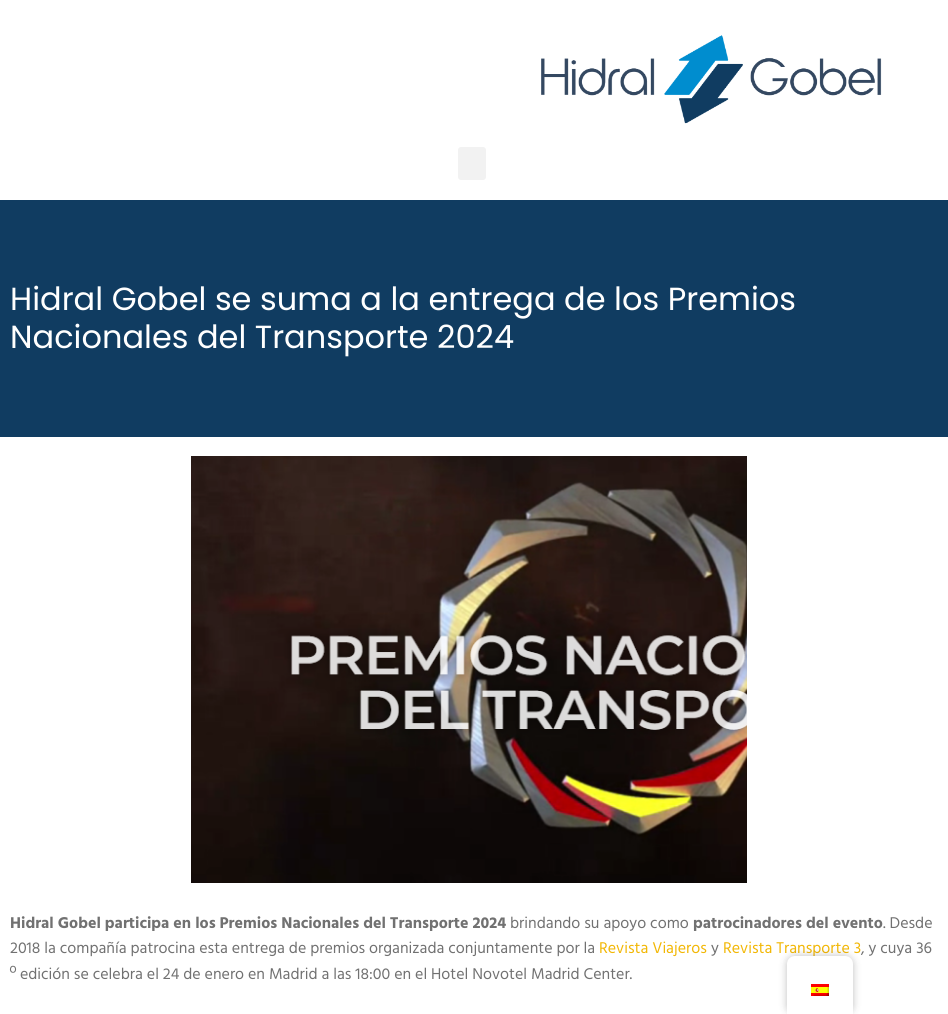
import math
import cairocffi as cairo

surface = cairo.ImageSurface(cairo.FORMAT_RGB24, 948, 1014)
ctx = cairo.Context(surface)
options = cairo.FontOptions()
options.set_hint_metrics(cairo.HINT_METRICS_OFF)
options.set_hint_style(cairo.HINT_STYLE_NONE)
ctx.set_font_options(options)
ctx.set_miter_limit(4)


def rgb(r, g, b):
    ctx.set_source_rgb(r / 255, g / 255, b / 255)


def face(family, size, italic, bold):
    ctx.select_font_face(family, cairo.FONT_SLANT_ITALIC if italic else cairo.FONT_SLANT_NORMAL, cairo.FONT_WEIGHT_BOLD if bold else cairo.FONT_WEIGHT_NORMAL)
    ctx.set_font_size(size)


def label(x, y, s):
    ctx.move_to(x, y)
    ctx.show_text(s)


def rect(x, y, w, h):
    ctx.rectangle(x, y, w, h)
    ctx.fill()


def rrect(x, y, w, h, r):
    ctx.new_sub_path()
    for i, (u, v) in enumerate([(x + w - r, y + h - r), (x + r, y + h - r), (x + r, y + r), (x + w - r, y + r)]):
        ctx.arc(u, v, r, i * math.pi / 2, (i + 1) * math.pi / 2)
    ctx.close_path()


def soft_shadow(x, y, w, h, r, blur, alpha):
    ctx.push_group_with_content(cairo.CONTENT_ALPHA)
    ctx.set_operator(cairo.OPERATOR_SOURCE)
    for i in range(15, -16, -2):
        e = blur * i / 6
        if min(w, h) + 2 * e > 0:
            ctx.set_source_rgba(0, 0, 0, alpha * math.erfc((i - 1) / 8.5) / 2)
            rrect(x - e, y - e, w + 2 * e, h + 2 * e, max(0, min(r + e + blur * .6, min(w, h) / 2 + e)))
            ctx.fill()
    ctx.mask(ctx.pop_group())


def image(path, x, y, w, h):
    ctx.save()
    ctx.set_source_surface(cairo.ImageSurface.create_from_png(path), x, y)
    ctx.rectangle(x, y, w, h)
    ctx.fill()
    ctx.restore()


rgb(255, 255, 255)
ctx.paint()
image('image0.png', 541, 35, 341, 89)
rgb(242, 242, 242)
rrect(458, 147, 28, 33, 3)
ctx.fill()
rgb(16, 60, 97)
rect(0, 200, 948, 237)
face('Poppins', 32, 0, 0)
rgb(255, 255, 255)
label(10, 310, 'Hidral Gobel se suma a la entrega de los Premios')
label(10, 348, 'Nacionales del Transporte 2024')
image('image1.png', 191, 456, 556, 427)
face('Hind', 16, 0, 1)
rgb(113, 113, 113)
label(10, 928, 'Hidral Gobel participa en los Premios Nacionales del Transporte 2024')
face('Hind', 16, 0, 0)
label(510, 928, 'brindando su apoyo como')
face('Hind', 16, 0, 1)
label(693, 928, 'patrocinadores del evento')
face('Hind', 16, 0, 0)
label(883, 928, '. Desde')
label(10, 953, '2018 la compañía patrocina esta entrega de premios organizada conjuntamente por la')
rgb(242, 183, 5)
label(599, 953, 'Revista Viajeros')
rgb(113, 113, 113)
label(711, 953, 'y')
rgb(242, 183, 5)
label(723, 953, 'Revista Transporte 3')
rgb(113, 113, 113)
label(861, 953, ', y cuya 36')
label(10, 979, 'º edición se celebra el 24 de enero en Madrid a las 18:00 en el Hotel Novotel Madrid Center.')
rgb(0, 0, 0)
soft_shadow(787, 956, 66, 58, 8, 4, 0.25)
rgb(255, 255, 255)
ctx.new_path()
ctx.move_to(795, 956)
ctx.line_to(845, 956)
ctx.curve_to(849.5, 956, 853, 959.5, 853, 964)
ctx.line_to(853, 1014)
ctx.line_to(787, 1014)
ctx.line_to(787, 964)
ctx.curve_to(787, 959.5, 790.5, 956, 795, 956)
ctx.close_path()
ctx.fill()
image('image2.png', 811, 984, 18, 12)
surface.write_to_png('render.png')
